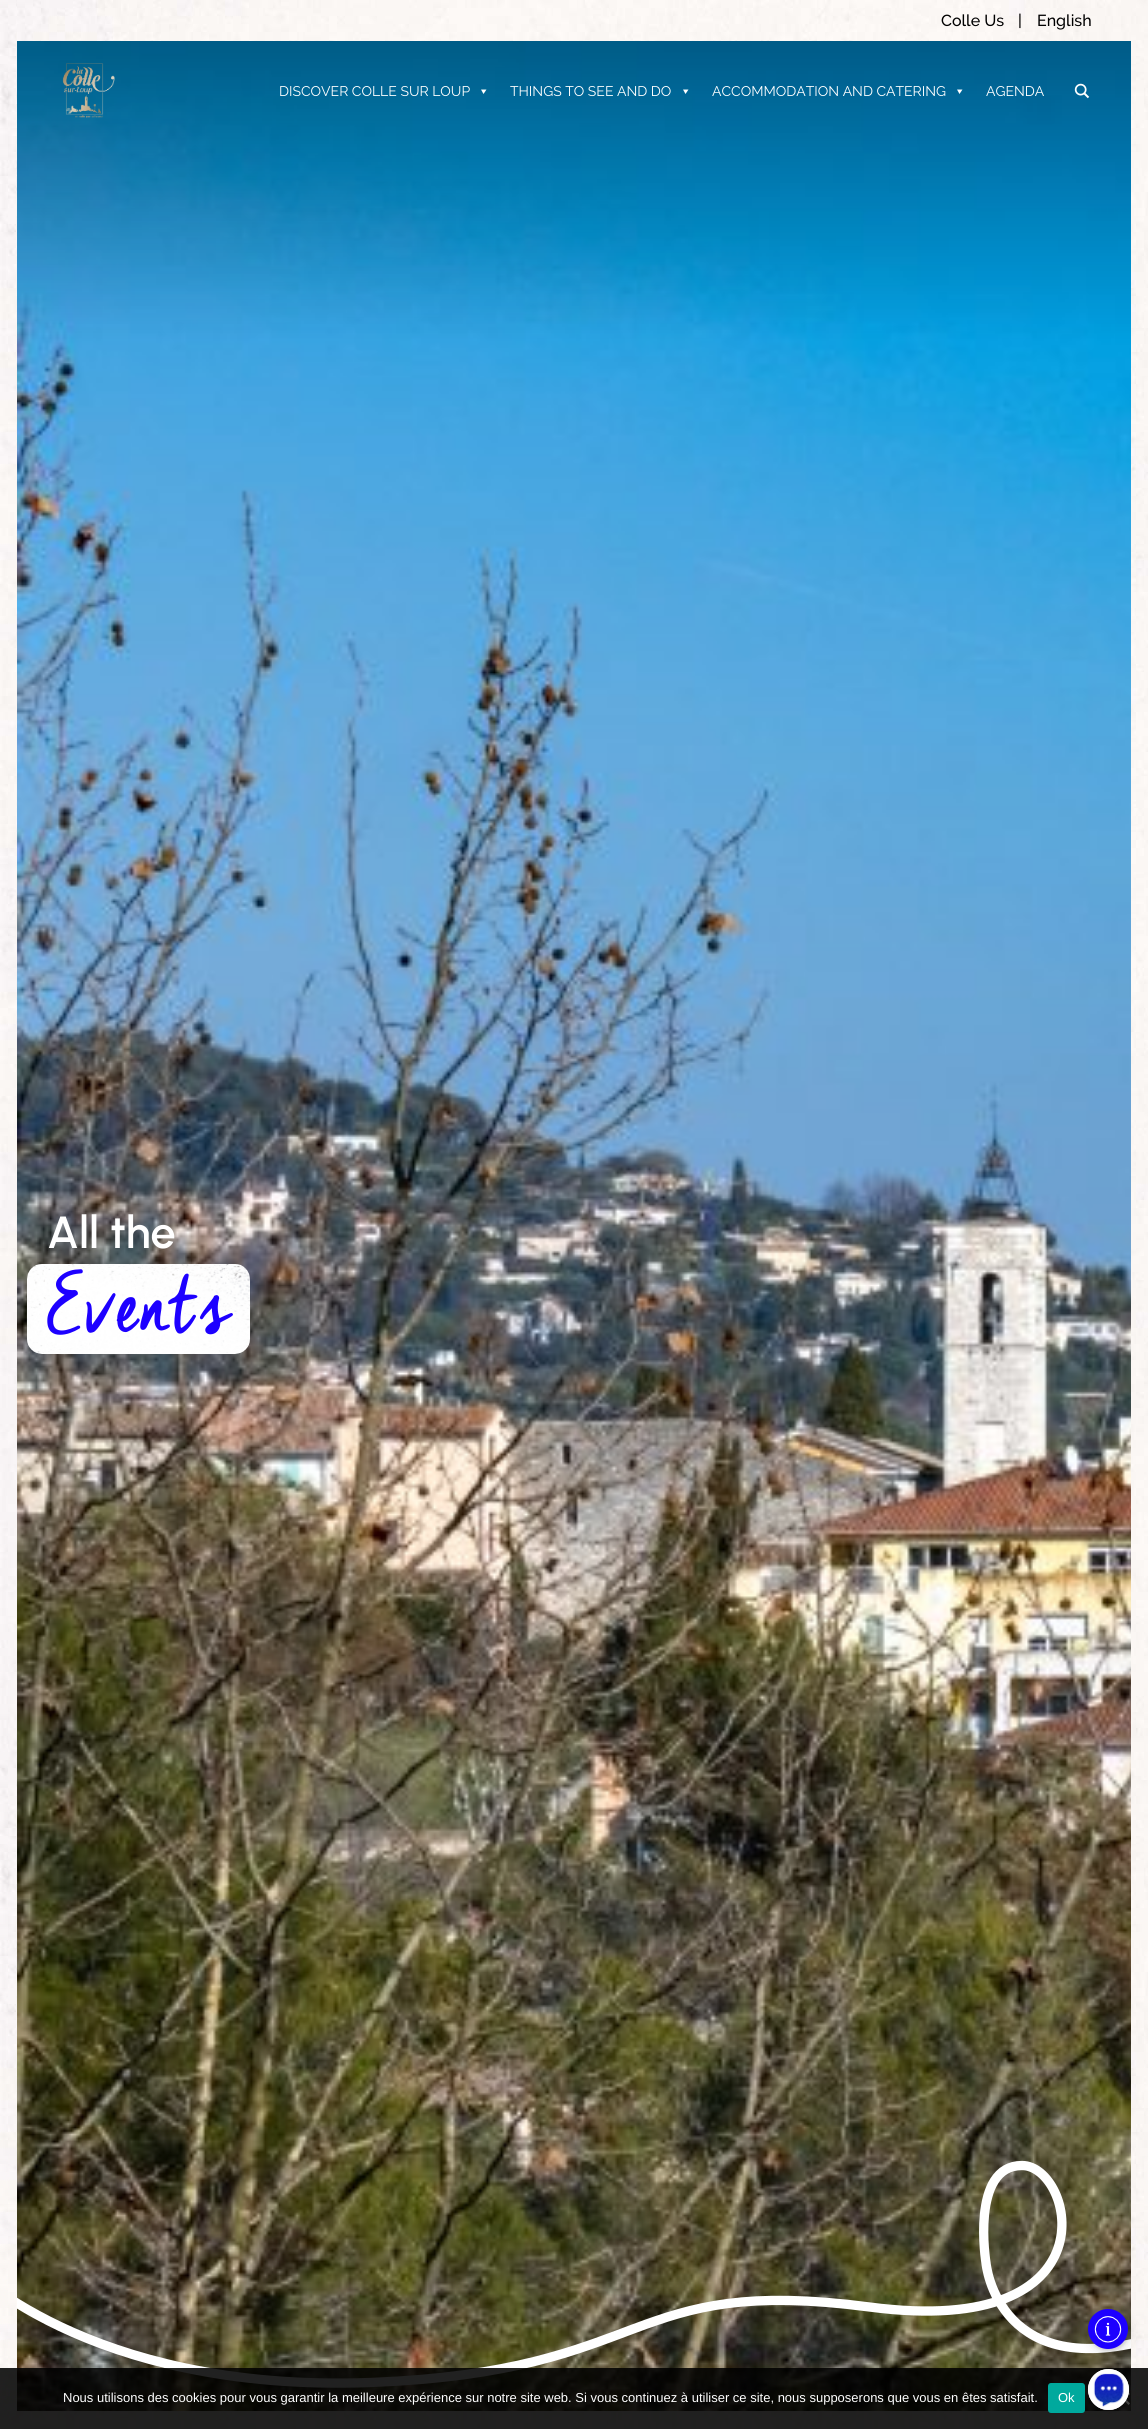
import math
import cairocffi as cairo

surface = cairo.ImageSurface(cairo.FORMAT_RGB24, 1148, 2429)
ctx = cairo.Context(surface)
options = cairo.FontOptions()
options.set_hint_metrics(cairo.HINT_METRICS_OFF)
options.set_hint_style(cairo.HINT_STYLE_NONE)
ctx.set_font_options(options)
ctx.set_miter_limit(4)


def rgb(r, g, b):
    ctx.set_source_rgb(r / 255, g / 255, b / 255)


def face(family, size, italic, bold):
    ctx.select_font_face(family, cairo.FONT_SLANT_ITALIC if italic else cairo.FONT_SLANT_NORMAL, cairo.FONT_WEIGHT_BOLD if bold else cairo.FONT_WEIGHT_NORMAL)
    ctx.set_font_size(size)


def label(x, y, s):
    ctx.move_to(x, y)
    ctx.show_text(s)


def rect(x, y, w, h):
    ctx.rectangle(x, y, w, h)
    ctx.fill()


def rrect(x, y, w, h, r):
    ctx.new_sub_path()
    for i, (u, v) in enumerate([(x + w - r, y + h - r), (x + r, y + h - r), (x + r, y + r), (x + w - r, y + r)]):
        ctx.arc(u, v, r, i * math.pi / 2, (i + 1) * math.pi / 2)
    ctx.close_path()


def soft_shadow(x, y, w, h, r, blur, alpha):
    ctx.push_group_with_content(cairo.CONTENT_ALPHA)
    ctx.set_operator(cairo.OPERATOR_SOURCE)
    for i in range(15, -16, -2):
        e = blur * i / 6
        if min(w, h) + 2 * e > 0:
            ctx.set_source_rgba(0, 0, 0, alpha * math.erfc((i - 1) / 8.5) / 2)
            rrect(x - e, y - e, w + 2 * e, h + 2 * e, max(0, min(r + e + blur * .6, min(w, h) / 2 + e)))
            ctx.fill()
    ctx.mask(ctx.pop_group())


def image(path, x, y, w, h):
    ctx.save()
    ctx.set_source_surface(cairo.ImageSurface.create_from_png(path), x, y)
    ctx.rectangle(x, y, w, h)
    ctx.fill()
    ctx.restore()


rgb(255, 255, 255)
ctx.paint()
image('image0.png', 0, 0, 1148, 2429)
image('image1.png', 17, 0, 1114, 41)
face('Raleway Medium', 16, 0, 0)
rgb(0, 0, 0)
label(941, 26, 'Colle Us')
label(1018, 26, '|')
label(1037, 26, 'English')
image('image4.png', 17, 41, 1114, 2370)
image('image2.png', 62, 63, 53, 55)
face('Raleway', 14, 0, 0)
rgb(255, 255, 255)
label(279, 96, 'DISCOVER COLLE SUR LOUP')
ctx.new_path()
ctx.move_to(486.5, 89.5)
ctx.line_to(483.5, 94)
ctx.line_to(481, 89.5)
ctx.close_path()
ctx.fill()
label(510, 96, 'THINGS TO SEE AND DO')
ctx.new_path()
ctx.move_to(688.5, 89.5)
ctx.line_to(685.5, 94)
ctx.line_to(683, 89.5)
ctx.close_path()
ctx.fill()
label(712, 96, 'ACCOMMODATION AND CATERING')
ctx.new_path()
ctx.move_to(962.5, 89.5)
ctx.line_to(959.5, 94)
ctx.line_to(957, 89.5)
ctx.close_path()
ctx.fill()
label(986, 96, 'AGENDA')
image('image3.png', 1074, 83, 16, 16)
face('Urbanist SemiBold', 45, 0, 0)
label(47, 1248, 'All the')
image('image5.png', 27, 1264, 223, 90)
face('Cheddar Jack', 100, 0, 0)
rgb(29, 0, 255)
label(47, 1330, 'Events')
ctx.save()
ctx.rectangle(17, 2144, 1114, 261)
ctx.clip()
ctx.new_path()
ctx.move_to(-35.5, 2263)
ctx.curve_to(-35.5, 2263, 85, 2393, 370.5, 2382.5)
ctx.curve_to(656.5, 2371.5, 622.5, 2274.5, 869.5, 2307)
ctx.curve_to(1116.5, 2339.5, 1074, 2165.5, 1022, 2165.5)
ctx.curve_to(970, 2165.5, 986, 2263, 986, 2263)
ctx.curve_to(986, 2263, 997.5, 2390, 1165.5, 2334.5)
rgb(255, 255, 255)
ctx.set_line_width(9.3)
ctx.set_line_cap(cairo.LINE_CAP_ROUND)
ctx.set_line_join(cairo.LINE_JOIN_ROUND)
ctx.stroke()
ctx.restore()
rgb(0, 0, 0)
soft_shadow(1089, 2311, 40, 40, 20, 1.5, 0.12)
soft_shadow(1089, 2311, 40, 40, 20, 6, 0.14)
rgb(29, 0, 255)
ctx.arc(1108, 2329, 20, 0, 2 * math.pi)
ctx.fill()
image('image6.png', 1094, 2316, 28, 27)
rgb(0, 0, 0)
soft_shadow(21, 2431, 40, 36, 20, 6, 0.14)
ctx.set_source_rgba(0, 0, 0, 0.87)
rect(0, 2368, 1148, 61)
face('Liberation Sans', 13, 0, 0)
rgb(255, 255, 255)
label(63, 2402, 'Nous utilisons des cookies pour vous garantir la meilleure expérience sur notre site web. Si vous continuez à utiliser ce site, nous supposerons que vous en êtes satisfait.')
rgb(0, 169, 157)
rrect(1048, 2383, 37, 30, 3)
ctx.fill()
rgb(255, 255, 255)
label(1058, 2402, 'Ok')
ctx.set_source_rgba(0.502, 0.502, 0.502, 0.5)
ctx.new_path()
ctx.move_to(1128.5, 2392.5)
ctx.line_to(1130, 2394)
ctx.line_to(1119.5, 2405)
ctx.line_to(1118, 2403.5)
ctx.close_path()
ctx.fill()
ctx.new_path()
ctx.move_to(1118, 2394)
ctx.line_to(1119.5, 2392.5)
ctx.line_to(1130, 2403.5)
ctx.line_to(1128.5, 2405)
ctx.close_path()
ctx.fill()
rgb(0, 0, 0)
soft_shadow(1089, 2371, 41, 41, 20.5, 1.5, 0.12)
rgb(255, 255, 255)
ctx.arc(1108.5, 2389.5, 20.5, 0, 2 * math.pi)
ctx.fill()
image('image7.png', 1087, 2369, 42, 41)
surface.write_to_png('render.png')
